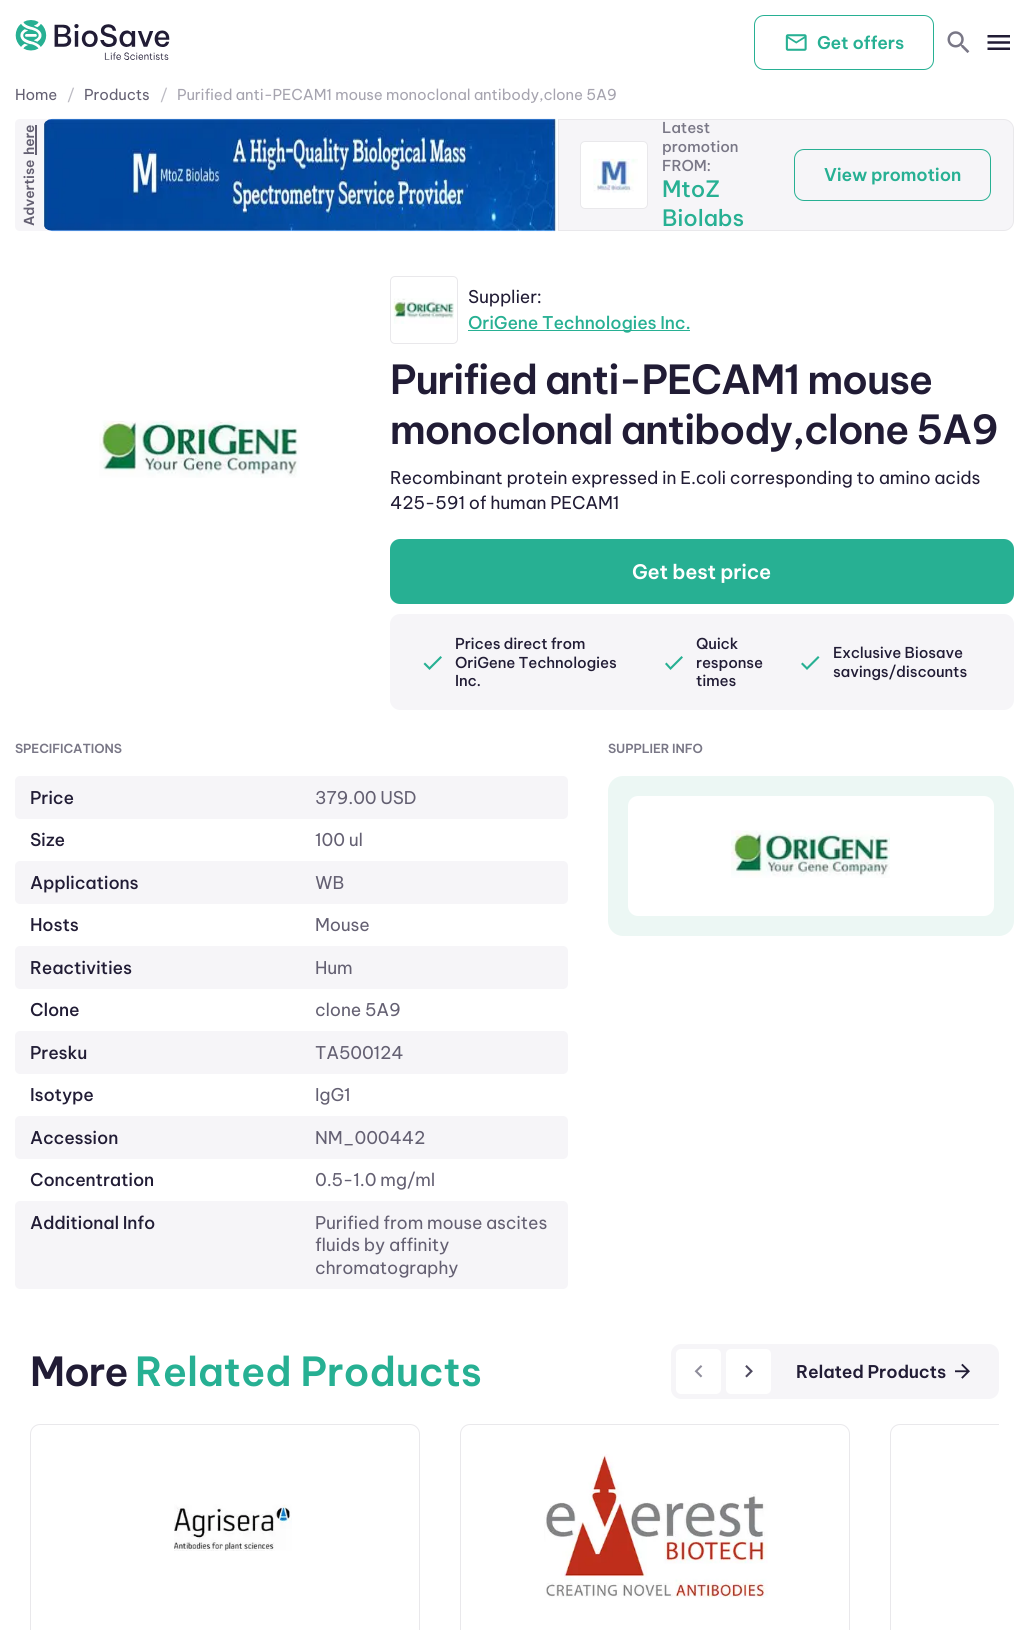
import math
import cairocffi as cairo

surface = cairo.ImageSurface(cairo.FORMAT_RGB24, 1028, 1630)
ctx = cairo.Context(surface)
options = cairo.FontOptions()
options.set_hint_metrics(cairo.HINT_METRICS_OFF)
options.set_hint_style(cairo.HINT_STYLE_NONE)
ctx.set_font_options(options)
ctx.set_miter_limit(4)


def rgb(r, g, b):
    ctx.set_source_rgb(r / 255, g / 255, b / 255)


def face(family, size, italic, bold):
    ctx.select_font_face(family, cairo.FONT_SLANT_ITALIC if italic else cairo.FONT_SLANT_NORMAL, cairo.FONT_WEIGHT_BOLD if bold else cairo.FONT_WEIGHT_NORMAL)
    ctx.set_font_size(size)


def tracked(x, y, s, letter, word):
    ctx.move_to(x, y)
    for ch in s:
        ctx.show_text(ch)
        ctx.rel_move_to(letter + word * (ch == ' '), 0)


def rect(x, y, w, h):
    ctx.rectangle(x, y, w, h)
    ctx.fill()


def rrect(x, y, w, h, r):
    ctx.new_sub_path()
    for i, (u, v) in enumerate([(x + w - r, y + h - r), (x + r, y + h - r), (x + r, y + r), (x + w - r, y + r)]):
        ctx.arc(u, v, r, i * math.pi / 2, (i + 1) * math.pi / 2)
    ctx.close_path()


def image(path, x, y, w, h):
    ctx.save()
    ctx.set_source_surface(cairo.ImageSurface.create_from_png(path), x, y)
    ctx.rectangle(x, y, w, h)
    ctx.fill()
    ctx.restore()


rgb(255, 255, 255)
ctx.paint()
image('image0.png', 15, 20, 155, 40)
rrect(754.5, 15.5, 179, 54, 9.5)
rgb(39, 176, 147)
ctx.set_line_width(1)
ctx.stroke()
image('image1.png', 785, 34, 22, 17)
face('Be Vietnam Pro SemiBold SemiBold', 17.5, 0, 0)
tracked(817, 49, 'Get offers', -0.18, 0)
image('image2.png', 947, 31, 23, 22)
image('image3.png', 987, 35, 23, 15)
face('Be Vietnam Pro', 15, 0, 0)
rgb(100, 96, 114)
tracked(15, 100, 'Home', -0.15, 0)
rgb(188, 187, 195)
tracked(67, 100, '/', -0.18, 0)
rgb(100, 96, 114)
tracked(84, 100, 'Products', -0.15, 0)
rgb(188, 187, 195)
tracked(160, 100, '/', -0.18, 0)
rgb(166, 164, 175)
tracked(177, 100, 'Purified anti-PECAM1 mouse monoclonal antibody,clone 5A9', -0.15, 0)
rgb(246, 245, 248)
ctx.new_path()
ctx.move_to(20, 119)
ctx.line_to(50, 119)
ctx.line_to(50, 231)
ctx.line_to(20, 231)
ctx.curve_to(17, 231, 15, 229, 15, 226)
ctx.line_to(15, 124)
ctx.curve_to(15, 121, 17, 119, 20, 119)
ctx.close_path()
ctx.fill()
face('Be Vietnam Pro SemiBold SemiBold', 13.75, 0, 0)
rgb(100, 96, 114)
ctx.save()
ctx.translate(34, 155)
ctx.rotate(-90 * math.pi / 180)
tracked(0, 0, 'here', -0.1, 0)
ctx.restore()
rect(35, 125, 2, 30)
ctx.save()
ctx.translate(34, 226)
ctx.rotate(-90 * math.pi / 180)
tracked(0, 0, 'Advertise', -0.1, 0)
ctx.restore()
image('image4.png', 43, 118, 515, 114)
rgb(246, 245, 248)
ctx.new_path()
ctx.move_to(558.5, 119.5)
ctx.line_to(1004, 119.5)
ctx.curve_to(1009, 119.5, 1013.5, 124, 1013.5, 129)
ctx.line_to(1013.5, 221)
ctx.curve_to(1013.5, 226, 1009, 230.5, 1004, 230.5)
ctx.line_to(558.5, 230.5)
ctx.close_path()
ctx.fill_preserve()
rgb(233, 232, 235)
ctx.stroke()
rgb(255, 255, 255)
rrect(580.5, 141.5, 67, 67, 4.5)
ctx.fill_preserve()
rgb(233, 232, 235)
ctx.stroke()
image('image5.png', 593, 158, 45, 35)
face('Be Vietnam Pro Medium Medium', 15, 0, 0)
rgb(121, 119, 134)
tracked(662, 133, 'Latest', -0.15, 0)
tracked(662, 152, 'promotion', -0.15, 0)
tracked(662, 171, 'FROM:', -0.15, 0)
face('Be Vietnam Pro Medium Medium', 22.5, 0, 0)
rgb(39, 176, 147)
tracked(662, 197, 'MtoZ', -0.18, 0)
tracked(662, 226, 'Biolabs', -0.18, 0)
rrect(794.5, 149.5, 196, 51, 9.5)
ctx.stroke()
face('Be Vietnam Pro SemiBold SemiBold', 17.5, 0, 0)
tracked(824, 181, 'View promotion', -0.18, 0)
image('image6.png', 99, 420, 201, 58)
rrect(390.5, 276.5, 67, 67, 4.5)
rgb(233, 232, 235)
ctx.stroke()
image('image7.png', 393, 298, 61, 26)
face('Be Vietnam Pro', 17.5, 0, 0)
rgb(33, 28, 53)
tracked(468, 303, 'Supplier:', -0.18, 0)
rgb(39, 176, 147)
rect(468, 330, 222, 1)
face('Be Vietnam Pro Medium Medium', 17.5, 0, 0)
tracked(468, 329, 'OriGene Technologies Inc.', -0.18, 0)
face('Be Vietnam Pro SemiBold SemiBold', 40, 0, 0)
rgb(33, 28, 53)
tracked(390, 394, 'Purified anti-PECAM1 mouse', -1.2, 0)
tracked(390, 444, 'monoclonal antibody,clone 5A9', -1.2, 0)
face('Be Vietnam Pro', 17.5, 0, 0)
tracked(390, 484, 'Recombinant protein expressed in E.coli corresponding to amino acids', -0.18, 0)
tracked(390, 509, '425-591 of human PECAM1', -0.18, 0)
rgb(39, 176, 147)
rrect(390, 539, 624, 65, 10)
ctx.fill()
face('Be Vietnam Pro SemiBold SemiBold', 20, 0, 0)
rgb(255, 255, 255)
tracked(632, 579, 'Get best price', -0.25, 0)
rgb(246, 245, 248)
rrect(390, 614, 624, 96, 10)
ctx.fill()
face('Be Vietnam Pro Medium Medium', 15, 0, 0)
rgb(33, 28, 53)
tracked(455, 649, 'Prices direct from', -0.15, 0)
rgb(39, 176, 147)
ctx.new_path()
ctx.move_to(429.5, 667)
ctx.line_to(425, 662.5)
ctx.line_to(423.5, 664)
ctx.line_to(429.5, 670)
ctx.line_to(442, 657.5)
ctx.line_to(440.5, 656)
ctx.close_path()
ctx.fill()
rgb(33, 28, 53)
tracked(455, 668, 'OriGene Technologies', -0.15, 0)
tracked(455, 686, 'Inc.', -0.15, 0)
tracked(696, 649, 'Quick', -0.15, 0)
rgb(39, 176, 147)
ctx.new_path()
ctx.move_to(670.5, 667)
ctx.line_to(666.5, 662.5)
ctx.line_to(665, 664)
ctx.line_to(670.5, 670)
ctx.line_to(683, 657.5)
ctx.line_to(681.5, 656)
ctx.close_path()
ctx.fill()
rgb(33, 28, 53)
tracked(696, 668, 'response', -0.15, 0)
tracked(696, 686, 'times', -0.15, 0)
tracked(833, 658, 'Exclusive Biosave', -0.15, 0)
rgb(39, 176, 147)
ctx.new_path()
ctx.move_to(807, 667)
ctx.line_to(802.5, 662.5)
ctx.line_to(801, 664)
ctx.line_to(807, 670)
ctx.line_to(819.5, 657.5)
ctx.line_to(818, 656)
ctx.close_path()
ctx.fill()
rgb(33, 28, 53)
tracked(833, 677, 'savings/discounts', -0.15, 0)
face('Be Vietnam Pro SemiBold SemiBold', 12.5, 0, 0)
rgb(121, 119, 134)
tracked(15, 753, 'SPECIFICATIONS', -0.1, 0)
rgb(246, 245, 248)
rrect(15, 776, 553, 43, 5)
ctx.fill()
face('Be Vietnam Pro Medium Medium', 17.5, 0, 0)
rgb(33, 28, 53)
tracked(30, 804, 'Price', -0.18, 0)
face('Be Vietnam Pro', 17.5, 0, 0)
rgb(100, 96, 114)
tracked(315, 804, '379.00 USD', -0.18, 0)
face('Be Vietnam Pro Medium Medium', 17.5, 0, 0)
rgb(33, 28, 53)
tracked(30, 846, 'Size', -0.18, 0)
face('Be Vietnam Pro', 17.5, 0, 0)
rgb(100, 96, 114)
tracked(315, 846, '100 ul', -0.18, 0)
rgb(246, 245, 248)
rrect(15, 861, 553, 43, 5)
ctx.fill()
face('Be Vietnam Pro Medium Medium', 17.5, 0, 0)
rgb(33, 28, 53)
tracked(30, 889, 'Applications', -0.18, 0)
face('Be Vietnam Pro', 17.5, 0, 0)
rgb(100, 96, 114)
tracked(315, 889, 'WB', -0.18, 0)
face('Be Vietnam Pro Medium Medium', 17.5, 0, 0)
rgb(33, 28, 53)
tracked(30, 931, 'Hosts', -0.18, 0)
face('Be Vietnam Pro', 17.5, 0, 0)
rgb(100, 96, 114)
tracked(315, 931, 'Mouse', -0.18, 0)
rgb(246, 245, 248)
rrect(15, 946, 553, 43, 5)
ctx.fill()
face('Be Vietnam Pro Medium Medium', 17.5, 0, 0)
rgb(33, 28, 53)
tracked(30, 974, 'Reactivities', -0.18, 0)
face('Be Vietnam Pro', 17.5, 0, 0)
rgb(100, 96, 114)
tracked(315, 974, 'Hum', -0.18, 0)
face('Be Vietnam Pro Medium Medium', 17.5, 0, 0)
rgb(33, 28, 53)
tracked(30, 1016, 'Clone', -0.18, 0)
face('Be Vietnam Pro', 17.5, 0, 0)
rgb(100, 96, 114)
tracked(315, 1016, 'clone 5A9', -0.18, 0)
rgb(246, 245, 248)
rrect(15, 1031, 553, 43, 5)
ctx.fill()
face('Be Vietnam Pro Medium Medium', 17.5, 0, 0)
rgb(33, 28, 53)
tracked(30, 1059, 'Presku', -0.18, 0)
face('Be Vietnam Pro', 17.5, 0, 0)
rgb(100, 96, 114)
tracked(315, 1059, 'TA500124', -0.18, 0)
face('Be Vietnam Pro Medium Medium', 17.5, 0, 0)
rgb(33, 28, 53)
tracked(30, 1101, 'Isotype', -0.18, 0)
face('Be Vietnam Pro', 17.5, 0, 0)
rgb(100, 96, 114)
tracked(315, 1101, 'IgG1', -0.18, 0)
rgb(246, 245, 248)
rrect(15, 1116, 553, 43, 5)
ctx.fill()
face('Be Vietnam Pro Medium Medium', 17.5, 0, 0)
rgb(33, 28, 53)
tracked(30, 1144, 'Accession', -0.18, 0)
face('Be Vietnam Pro', 17.5, 0, 0)
rgb(100, 96, 114)
tracked(315, 1144, 'NM_000442', -0.18, 0)
face('Be Vietnam Pro Medium Medium', 17.5, 0, 0)
rgb(33, 28, 53)
tracked(30, 1186, 'Concentration', -0.18, 0)
face('Be Vietnam Pro', 17.5, 0, 0)
rgb(100, 96, 114)
tracked(315, 1186, '0.5-1.0 mg/ml', -0.18, 0)
rgb(246, 245, 248)
rrect(15, 1201, 553, 88, 5)
ctx.fill()
face('Be Vietnam Pro Medium Medium', 17.5, 0, 0)
rgb(33, 28, 53)
tracked(30, 1229, 'Additional Info', -0.18, 0)
face('Be Vietnam Pro', 17.5, 0, 0)
rgb(100, 96, 114)
tracked(315, 1229, 'Purified from mouse ascites', -0.18, 0)
tracked(315, 1251, 'fluids by affinity', -0.18, 0)
tracked(315, 1274, 'chromatography', -0.18, 0)
face('Be Vietnam Pro SemiBold SemiBold', 12.5, 0, 0)
rgb(121, 119, 134)
tracked(608, 753, 'SUPPLIER INFO', -0.1, 0)
rgb(236, 247, 244)
rrect(608, 776, 406, 160, 15)
ctx.fill()
rgb(255, 255, 255)
rrect(628, 796, 366, 120, 10)
ctx.fill()
image('image8.png', 731, 830, 159, 48)
face('Be Vietnam Pro SemiBold SemiBold', 40, 0, 0)
rgb(33, 28, 53)
tracked(30, 1386, 'More', -1.2, 0)
rgb(39, 176, 147)
tracked(135, 1386, 'Related Products', -0.18, 0)
rgb(246, 245, 248)
rrect(671, 1344, 328, 55, 10)
ctx.fill()
rgb(255, 255, 255)
rrect(676, 1349, 45, 45, 5)
ctx.fill()
image('image9.png', 694, 1365, 9, 13)
rrect(726, 1349, 45, 45, 5)
ctx.fill()
image('image10.png', 745, 1365, 8, 13)
face('Be Vietnam Pro SemiBold SemiBold', 17.5, 0, 0)
rgb(33, 28, 53)
tracked(796, 1378, 'Related Products', -0.18, 0)
image('image11.png', 955, 1363, 15, 16)
rrect(30.5, 1424.5, 389, 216, 9.5)
rgb(233, 232, 235)
ctx.stroke()
image('image12.png', 174, 1504, 118, 47)
rrect(460.5, 1424.5, 389, 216, 9.5)
ctx.stroke()
image('image13.png', 544, 1454, 224, 144)
ctx.save()
ctx.rectangle(30, 1424, 969, 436)
ctx.clip()
rrect(890.5, 1424.5, 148, 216, 9.5)
ctx.stroke()
ctx.restore()
surface.write_to_png('render.png')
